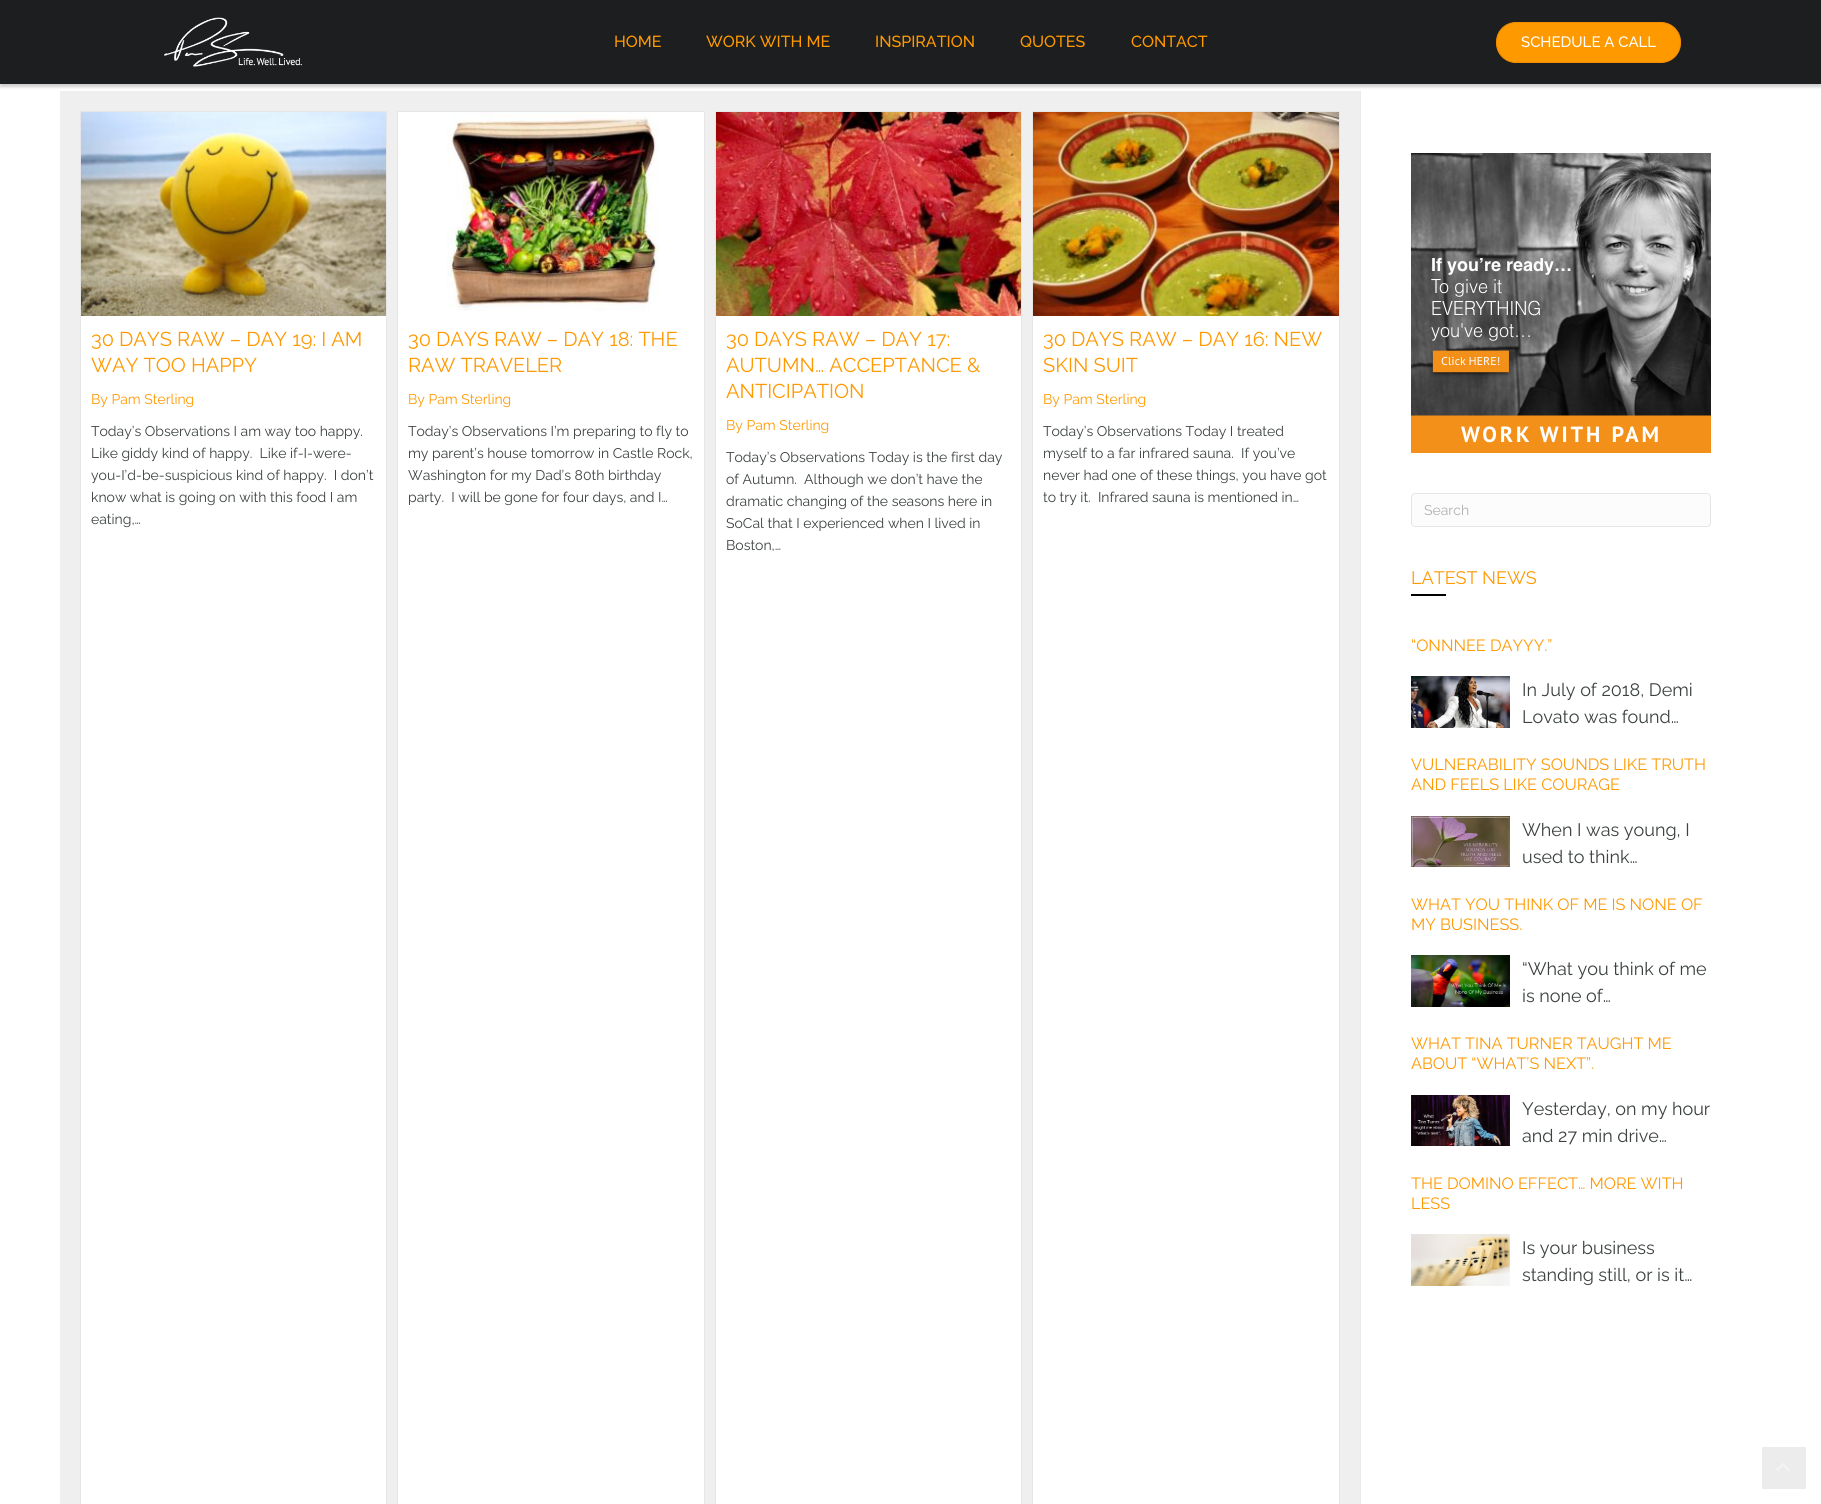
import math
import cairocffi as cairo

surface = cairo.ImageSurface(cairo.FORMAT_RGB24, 1821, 1504)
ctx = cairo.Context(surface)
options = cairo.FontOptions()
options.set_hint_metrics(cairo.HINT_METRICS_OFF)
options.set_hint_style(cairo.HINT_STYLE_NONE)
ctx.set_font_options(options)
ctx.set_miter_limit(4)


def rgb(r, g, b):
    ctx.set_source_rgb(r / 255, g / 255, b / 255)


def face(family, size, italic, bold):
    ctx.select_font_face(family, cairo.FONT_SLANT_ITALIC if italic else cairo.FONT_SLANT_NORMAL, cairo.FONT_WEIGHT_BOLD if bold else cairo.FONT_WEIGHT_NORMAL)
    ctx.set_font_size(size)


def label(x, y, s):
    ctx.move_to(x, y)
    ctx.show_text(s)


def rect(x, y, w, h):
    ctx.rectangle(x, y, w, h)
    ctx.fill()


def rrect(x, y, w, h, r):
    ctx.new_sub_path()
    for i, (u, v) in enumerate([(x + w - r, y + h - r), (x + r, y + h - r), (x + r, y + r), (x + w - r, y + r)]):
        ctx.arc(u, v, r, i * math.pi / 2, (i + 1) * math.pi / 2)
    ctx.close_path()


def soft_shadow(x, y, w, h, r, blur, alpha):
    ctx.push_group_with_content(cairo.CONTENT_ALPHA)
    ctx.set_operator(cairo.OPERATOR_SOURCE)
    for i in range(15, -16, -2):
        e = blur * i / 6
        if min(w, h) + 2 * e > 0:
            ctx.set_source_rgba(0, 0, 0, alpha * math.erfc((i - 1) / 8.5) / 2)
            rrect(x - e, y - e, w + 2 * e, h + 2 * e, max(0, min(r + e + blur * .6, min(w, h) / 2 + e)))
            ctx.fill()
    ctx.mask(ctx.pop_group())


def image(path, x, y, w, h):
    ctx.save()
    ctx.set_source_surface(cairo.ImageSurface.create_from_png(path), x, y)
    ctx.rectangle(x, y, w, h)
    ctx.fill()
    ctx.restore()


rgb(255, 255, 255)
ctx.paint()
rgb(239, 239, 239)
rect(60, 91, 1300, 1413)
rgb(237, 232, 237)
rect(1360, 91, 1, 1413)
rgb(0, 0, 0)
soft_shadow(0, 3, 1821, 84, 0, 1.5, 0.2)
rgb(29, 30, 31)
rect(0, 0, 1821, 84)
image('image0.png', 164, 17, 138, 50)
face('Raleway Medium', 16, 0, 0)
rgb(255, 153, 0)
label(614, 47, 'HOME')
label(706, 47, 'WORK WITH ME')
label(875, 47, 'INSPIRATION')
label(1020, 47, 'QUOTES')
label(1131, 47, 'CONTACT')
rrect(1496.5, 22.5, 184, 40, 19.5)
ctx.fill_preserve()
rgb(243, 141, 0)
ctx.set_line_width(1)
ctx.stroke()
face('Raleway Medium', 15, 0, 0)
rgb(255, 255, 255)
label(1521, 47, 'SCHEDULE A CALL')
rect(81, 316, 305, 1188)
ctx.rectangle(80.5, 111.5, 306, 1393)
rgb(230, 230, 230)
ctx.stroke()
image('image1.png', 81, 112, 305, 204)
face('Raleway', 20, 0, 0)
rgb(255, 153, 0)
label(91, 346, '30 DAYS RAW – DAY 19: I AM')
label(91, 372, 'WAY TOO HAPPY')
face('Raleway', 14, 0, 0)
label(91, 404, 'By Pam Sterling')
rgb(60, 65, 65)
label(91, 436, 'Today’s Observations I am way too happy.')
label(91, 458, 'Like giddy kind of happy.  Like if-I-were-')
label(91, 480, 'you-I’d-be-suspicious kind of happy.  I don’t')
label(91, 502, 'know what is going on with this food I am')
label(91, 524, 'eating,…')
rgb(255, 255, 255)
ctx.rectangle(397.5, 111.5, 307, 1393)
ctx.fill_preserve()
rgb(230, 230, 230)
ctx.stroke()
image('image2.png', 447, 112, 212, 199)
face('Raleway', 20, 0, 0)
rgb(255, 153, 0)
label(408, 346, '30 DAYS RAW – DAY 18: THE')
label(408, 372, 'RAW TRAVELER')
face('Raleway', 14, 0, 0)
label(408, 404, 'By Pam Sterling')
rgb(60, 65, 65)
label(408, 436, 'Today’s Observations I’m preparing to fly to')
label(408, 458, 'my parent’s house tomorrow in Castle Rock,')
label(408, 480, 'Washington for my Dad’s 80th birthday')
label(408, 502, 'party.  I will be gone for four days, and I…')
rgb(255, 255, 255)
rect(716, 316, 305, 1188)
ctx.rectangle(715.5, 111.5, 306, 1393)
rgb(230, 230, 230)
ctx.stroke()
image('image3.png', 716, 112, 305, 204)
face('Raleway', 20, 0, 0)
rgb(255, 153, 0)
label(726, 346, '30 DAYS RAW – DAY 17:')
label(726, 372, 'AUTUMN… ACCEPTANCE &')
label(726, 398, 'ANTICIPATION')
face('Raleway', 14, 0, 0)
label(726, 430, 'By Pam Sterling')
rgb(60, 65, 65)
label(726, 462, 'Today’s Observations Today is the first day')
label(726, 484, 'of Autumn.  Although we don’t have the')
label(726, 506, 'dramatic changing of the seasons here in')
label(726, 528, 'SoCal that I experienced when I lived in')
label(726, 550, 'Boston,…')
rgb(255, 255, 255)
rect(1033, 316, 306, 1188)
ctx.rectangle(1032.5, 111.5, 307, 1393)
rgb(230, 230, 230)
ctx.stroke()
image('image4.png', 1033, 112, 306, 204)
face('Raleway', 20, 0, 0)
rgb(255, 153, 0)
label(1043, 346, '30 DAYS RAW – DAY 16: NEW')
label(1043, 372, 'SKIN SUIT')
face('Raleway', 14, 0, 0)
label(1043, 404, 'By Pam Sterling')
rgb(60, 65, 65)
label(1043, 436, 'Today’s Observations Today I treated')
label(1043, 458, 'myself to a far infrared sauna.  If you’ve')
label(1043, 480, 'never had one of these things, you have got')
label(1043, 502, 'to try it.  Infrared sauna is mentioned in…')
image('image5.png', 1411, 153, 300, 300)
rgb(252, 252, 252)
rrect(1411.5, 493.5, 299, 33, 3.5)
ctx.fill_preserve()
rgb(230, 230, 230)
ctx.stroke()
rgb(175, 177, 177)
label(1424, 515, 'Search')
face('Raleway', 18, 0, 0)
rgb(255, 153, 0)
label(1411, 584, 'LATEST NEWS')
rgb(0, 0, 0)
rect(1411, 594, 35, 2)
face('Raleway', 16.25, 0, 0)
rgb(255, 153, 0)
label(1411, 651, '“ONNNEE DAYYY.”')
image('image6.png', 1411, 676, 99, 52)
face('Raleway', 18, 0, 0)
rgb(60, 65, 65)
label(1522, 696, 'In July of 2018, Demi')
label(1522, 723, 'Lovato was found…')
face('Raleway', 16.25, 0, 0)
rgb(255, 153, 0)
label(1411, 770, 'VULNERABILITY SOUNDS LIKE TRUTH')
label(1411, 790, 'AND FEELS LIKE COURAGE')
image('image7.png', 1411, 816, 99, 51)
face('Raleway', 18, 0, 0)
rgb(60, 65, 65)
label(1522, 836, 'When I was young, I')
label(1522, 863, 'used to think…')
face('Raleway', 16.25, 0, 0)
rgb(255, 153, 0)
label(1411, 910, 'WHAT YOU THINK OF ME IS NONE OF')
label(1411, 930, 'MY BUSINESS.')
image('image8.png', 1411, 955, 99, 52)
face('Raleway', 18, 0, 0)
rgb(60, 65, 65)
label(1522, 975, '“What you think of me')
label(1522, 1002, 'is none of…')
face('Raleway', 16.25, 0, 0)
rgb(255, 153, 0)
label(1411, 1049, 'WHAT TINA TURNER TAUGHT ME')
label(1411, 1069, 'ABOUT “WHAT’S NEXT”.')
image('image9.png', 1411, 1095, 99, 51)
face('Raleway', 18, 0, 0)
rgb(60, 65, 65)
label(1522, 1115, 'Yesterday, on my hour')
label(1522, 1142, 'and 27 min drive…')
face('Raleway', 16.25, 0, 0)
rgb(255, 153, 0)
label(1411, 1189, 'THE DOMINO EFFECT… MORE WITH')
label(1411, 1209, 'LESS')
image('image10.png', 1411, 1234, 99, 52)
face('Raleway', 18, 0, 0)
rgb(60, 65, 65)
label(1522, 1254, 'Is your business')
label(1522, 1281, 'standing still, or is it…')
rgb(236, 236, 236)
rect(1762, 1447, 44, 42)
image('image11.png', 1776, 1463, 14, 8)
surface.write_to_png('render.png')
